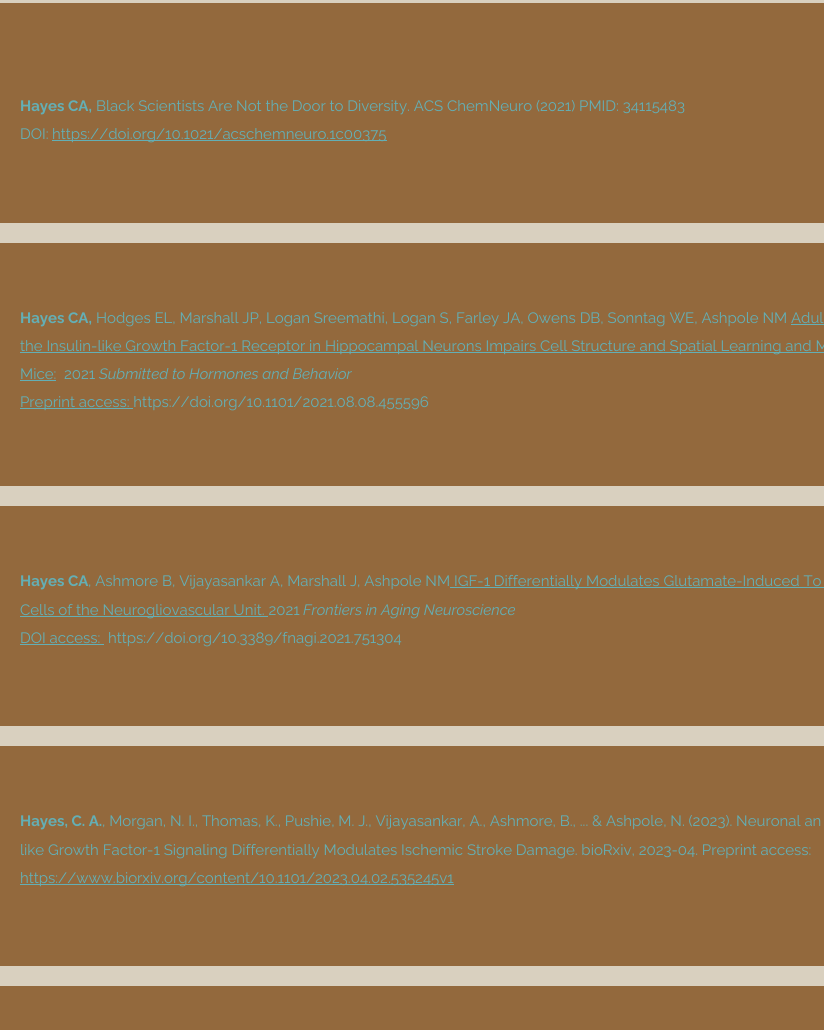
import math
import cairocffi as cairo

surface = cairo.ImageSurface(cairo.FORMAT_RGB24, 824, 1030)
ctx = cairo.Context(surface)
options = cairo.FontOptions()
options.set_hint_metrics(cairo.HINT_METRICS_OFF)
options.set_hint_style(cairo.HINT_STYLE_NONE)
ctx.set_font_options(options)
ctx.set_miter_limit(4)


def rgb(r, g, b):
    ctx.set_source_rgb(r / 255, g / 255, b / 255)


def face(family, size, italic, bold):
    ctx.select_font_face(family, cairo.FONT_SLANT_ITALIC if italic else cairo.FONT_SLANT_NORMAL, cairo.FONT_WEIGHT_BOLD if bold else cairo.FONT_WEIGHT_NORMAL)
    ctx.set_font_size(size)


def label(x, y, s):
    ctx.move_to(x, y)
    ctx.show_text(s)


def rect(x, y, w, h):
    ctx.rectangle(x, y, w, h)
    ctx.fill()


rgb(217, 208, 191)
ctx.paint()
rgb(147, 105, 61)
rect(0, 3, 824, 220)
face('Raleway', 15, 0, 1)
rgb(99, 175, 181)
label(20, 111, 'Hayes CA,')
face('Raleway', 15, 0, 0)
label(96, 111, 'Black Scientists Are Not the Door to Diversity. ACS ChemNeuro (2021) PMID: 34115483')
label(20, 139, 'DOI:')
rect(52, 140, 335, 1)
label(52, 139, 'https://doi.org/10.1021/acschemneuro.1c00375')
rgb(147, 105, 61)
rect(0, 243, 824, 243)
face('Raleway', 15, 0, 1)
rgb(99, 175, 181)
label(20, 323, 'Hayes CA,')
face('Raleway', 15, 0, 0)
label(96, 323, 'Hodges EL, Marshall JP, Logan Sreemathi, Logan S, Farley JA, Owens DB, Sonntag WE, Ashpole NM Adul')
rect(791, 324, 33, 1)
rect(20, 352, 804, 1)
label(20, 351, 'the Insulin-like Growth Factor-1 Receptor in Hippocampal Neurons Impairs Cell Structure and Spatial Learning and M')
label(20, 379, 'Mice:')
rect(20, 380, 36, 1)
label(64, 379, '2021')
face('Raleway', 15, 1, 0)
label(99, 379, 'Submitted to Hormones and Behavior')
rect(20, 408, 113, 1)
face('Raleway', 15, 0, 0)
label(20, 407, 'Preprint access: https://doi.org/10.1101/2021.08.08.455596')
rgb(147, 105, 61)
rect(0, 506, 824, 220)
face('Raleway', 15, 0, 1)
rgb(99, 175, 181)
label(20, 586, 'Hayes CA')
face('Raleway', 15, 0, 0)
label(88, 586, ', Ashmore B, Vijayasankar A, Marshall J, Ashpole NM')
rect(450, 587, 374, 1)
label(454, 586, 'IGF-1 Differentially Modulates Glutamate-Induced To')
rect(20, 616, 248, 1)
label(20, 615, 'Cells of the Neurogliovascular Unit. 2021')
face('Raleway', 15, 1, 0)
label(303, 615, 'Frontiers in Aging Neuroscience')
face('Raleway', 15, 0, 0)
label(20, 643, 'DOI access:')
rect(20, 644, 84, 1)
label(108, 643, 'https://doi.org/10.3389/fnagi.2021.751304')
rgb(147, 105, 61)
rect(0, 746, 824, 220)
face('Raleway', 15, 0, 1)
rgb(99, 175, 181)
label(20, 826, 'Hayes, C. A.')
face('Raleway', 15, 0, 0)
label(102, 826, ', Morgan, N. I., Thomas, K., Pushie, M. J., Vijayasankar, A., Ashmore, B., ... & Ashpole, N. (2023). Neuronal an')
label(20, 855, 'like Growth Factor-1 Signaling Differentially Modulates Ischemic Stroke Damage. bioRxiv, 2023-04. Preprint access:')
rect(20, 884, 434, 1)
label(20, 883, 'https://www.biorxiv.org/content/10.1101/2023.04.02.535245v1')
rgb(147, 105, 61)
rect(0, 986, 824, 44)
surface.write_to_png('render.png')
